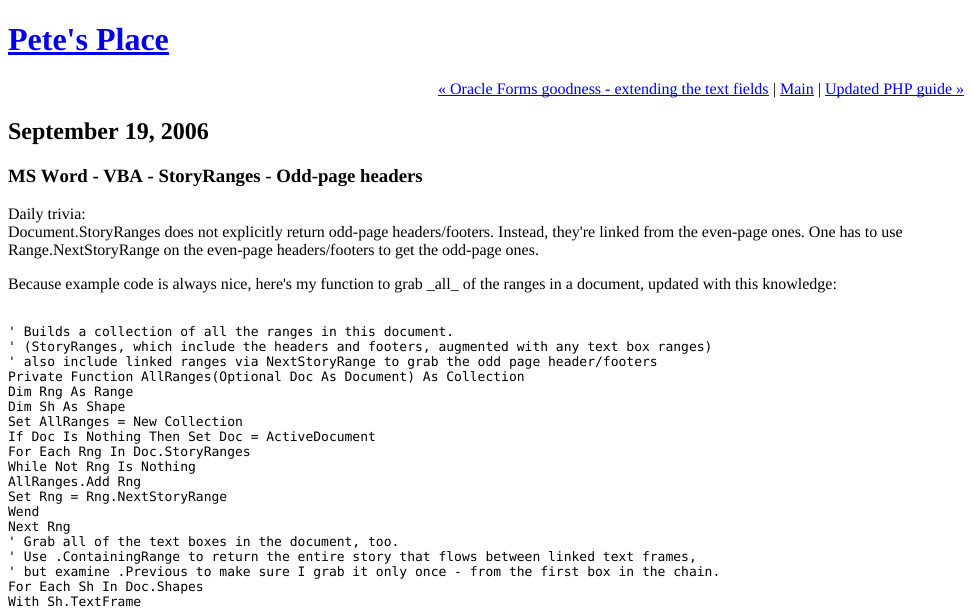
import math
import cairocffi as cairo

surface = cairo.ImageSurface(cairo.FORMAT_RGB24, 972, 609)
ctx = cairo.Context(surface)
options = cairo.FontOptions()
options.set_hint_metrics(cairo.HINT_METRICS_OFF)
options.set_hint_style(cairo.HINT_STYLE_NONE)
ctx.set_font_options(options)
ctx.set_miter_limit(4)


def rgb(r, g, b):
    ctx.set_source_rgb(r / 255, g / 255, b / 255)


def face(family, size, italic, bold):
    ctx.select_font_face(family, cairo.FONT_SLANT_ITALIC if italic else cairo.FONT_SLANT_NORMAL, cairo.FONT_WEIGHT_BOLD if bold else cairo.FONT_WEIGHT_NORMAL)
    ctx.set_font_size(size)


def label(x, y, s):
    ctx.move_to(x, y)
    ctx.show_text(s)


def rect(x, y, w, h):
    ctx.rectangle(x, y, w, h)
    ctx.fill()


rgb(255, 255, 255)
ctx.paint()
face('Liberation Serif', 32, 0, 1)
rgb(0, 0, 238)
label(8, 50, 'Pete\'s Place')
rect(8, 52, 161, 3)
rect(438, 95, 331, 1)
face('Liberation Serif', 16, 0, 0)
label(438, 94, '« Oracle Forms goodness - extending the text fields')
rgb(0, 0, 0)
label(773, 94, '|')
rgb(0, 0, 238)
label(780, 94, 'Main')
rect(780, 95, 34, 1)
rgb(0, 0, 0)
label(818, 94, '|')
rgb(0, 0, 238)
rect(825, 95, 139, 1)
label(825, 94, 'Updated PHP guide »')
face('Liberation Serif', 24, 0, 1)
rgb(0, 0, 0)
label(8, 139, 'September 19, 2006')
face('Liberation Serif', 18.75, 0, 1)
label(8, 182, 'MS Word - VBA - StoryRanges - Odd-page headers')
face('Liberation Serif', 16, 0, 0)
label(8, 219, 'Daily trivia:')
label(8, 237, 'Document.StoryRanges does not explicitly return odd-page headers/footers. Instead, they\'re linked from the even-page ones. One has to use')
label(8, 255, 'Range.NextStoryRange on the even-page headers/footers to get the odd-page ones.')
label(8, 289, 'Because example code is always nice, here\'s my function to grab _all_ of the ranges in a document, updated with this knowledge:')
face('DejaVu Sans Mono', 13, 0, 0)
label(8, 336, '\' Builds a collection of all the ranges in this document.')
label(8, 351, '\' (StoryRanges, which include the headers and footers, augmented with any text box ranges)')
label(8, 366, '\' also include linked ranges via NextStoryRange to grab the odd page header/footers')
label(8, 381, 'Private Function AllRanges(Optional Doc As Document) As Collection')
label(8, 396, 'Dim Rng As Range')
label(8, 411, 'Dim Sh As Shape')
label(8, 426, 'Set AllRanges = New Collection')
label(8, 441, 'If Doc Is Nothing Then Set Doc = ActiveDocument')
label(8, 456, 'For Each Rng In Doc.StoryRanges')
label(8, 471, 'While Not Rng Is Nothing')
label(8, 486, 'AllRanges.Add Rng')
label(8, 501, 'Set Rng = Rng.NextStoryRange')
label(8, 516, 'Wend')
label(8, 531, 'Next Rng')
label(8, 546, '\' Grab all of the text boxes in the document, too.')
label(8, 561, '\' Use .ContainingRange to return the entire story that flows between linked text frames,')
label(8, 576, '\' but examine .Previous to make sure I grab it only once - from the first box in the chain.')
label(8, 591, 'For Each Sh In Doc.Shapes')
label(8, 606, 'With Sh.TextFrame')
surface.write_to_png('render.png')
